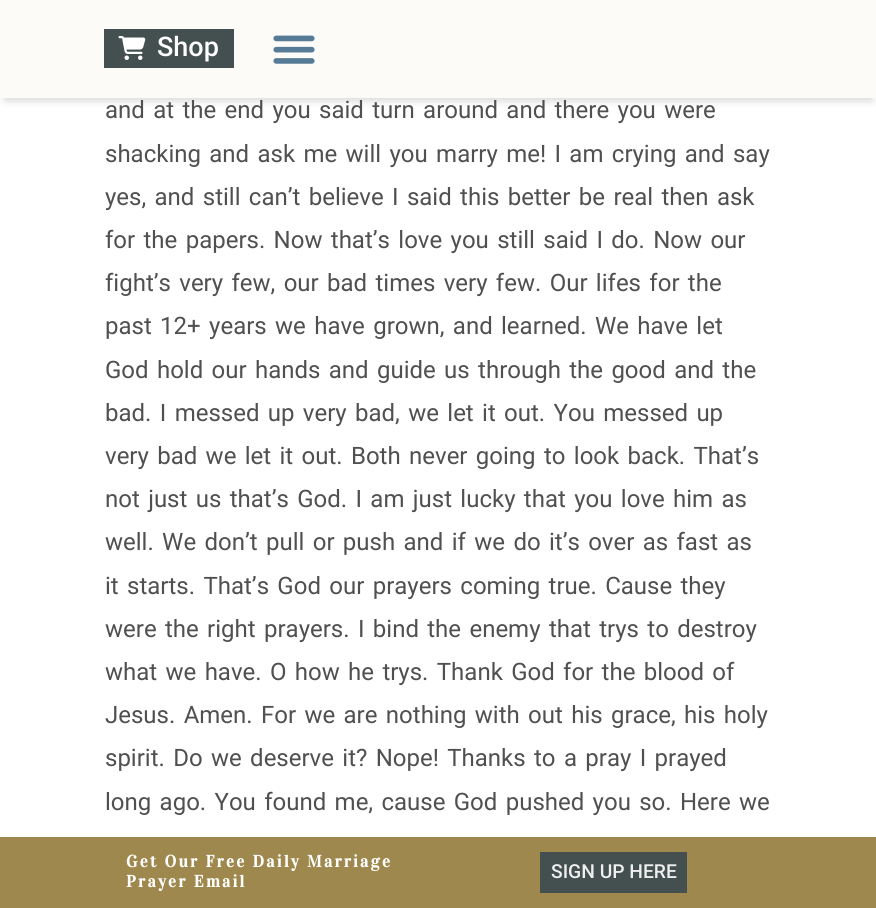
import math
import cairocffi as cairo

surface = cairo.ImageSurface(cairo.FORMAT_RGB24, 876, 908)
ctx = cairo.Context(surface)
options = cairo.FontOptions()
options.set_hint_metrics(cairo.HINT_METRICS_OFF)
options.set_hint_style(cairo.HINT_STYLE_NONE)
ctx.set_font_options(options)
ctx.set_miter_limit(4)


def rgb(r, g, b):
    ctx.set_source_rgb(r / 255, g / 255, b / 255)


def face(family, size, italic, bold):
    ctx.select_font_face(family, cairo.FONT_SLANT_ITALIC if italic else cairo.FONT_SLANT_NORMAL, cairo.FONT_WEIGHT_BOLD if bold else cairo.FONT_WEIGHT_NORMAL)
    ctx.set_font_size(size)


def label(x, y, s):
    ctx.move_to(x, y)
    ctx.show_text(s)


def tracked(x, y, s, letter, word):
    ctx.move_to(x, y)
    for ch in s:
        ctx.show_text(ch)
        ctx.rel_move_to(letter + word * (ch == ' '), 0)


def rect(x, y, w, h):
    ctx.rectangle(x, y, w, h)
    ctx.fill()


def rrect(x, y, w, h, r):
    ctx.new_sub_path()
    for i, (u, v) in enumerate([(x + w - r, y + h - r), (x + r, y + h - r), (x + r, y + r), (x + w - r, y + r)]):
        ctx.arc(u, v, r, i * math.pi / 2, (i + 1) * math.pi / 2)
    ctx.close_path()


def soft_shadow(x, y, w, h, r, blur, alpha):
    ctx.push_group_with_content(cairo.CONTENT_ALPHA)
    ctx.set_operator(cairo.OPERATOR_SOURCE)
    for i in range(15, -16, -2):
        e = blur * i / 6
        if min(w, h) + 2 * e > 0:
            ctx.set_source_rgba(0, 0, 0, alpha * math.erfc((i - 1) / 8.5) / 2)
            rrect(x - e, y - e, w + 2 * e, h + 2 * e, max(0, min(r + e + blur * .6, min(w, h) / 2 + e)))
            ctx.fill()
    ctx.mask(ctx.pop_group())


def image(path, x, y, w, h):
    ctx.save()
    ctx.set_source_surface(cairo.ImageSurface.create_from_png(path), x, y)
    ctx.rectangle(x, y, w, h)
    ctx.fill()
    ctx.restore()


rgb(255, 255, 255)
ctx.paint()
rgb(0, 0, 0)
soft_shadow(5, 12, 867, 89, 0, 4, 0.15)
rgb(253, 251, 248)
rect(0, 0, 876, 98)
rgb(68, 80, 80)
rect(104, 29, 130, 39)
image('image0.png', 118, 36, 28, 24)
face('Roboto Medium', 27, 0, 0)
rgb(255, 255, 255)
label(157, 56, 'Shop')
image('image1.png', 273, 35, 42, 29)
face('Roboto', 24, 0, 0)
rgb(80, 80, 80)
tracked(105, 118, 'and at the end you said turn around and there you were', 0, 2.4)
tracked(105, 162, 'shacking and ask me will you marry me! I am crying and say', 0, 2.4)
tracked(105, 205, 'yes, and still can’t believe I said this better be real then ask', 0, 2.4)
tracked(105, 248, 'for the papers. Now that’s love you still said I do. Now our', 0, 2.4)
tracked(105, 291, 'fight’s very few, our bad times very few. Our lifes for the', 0, 2.4)
tracked(105, 334, 'past 12+ years we have grown, and learned. We have let', 0, 2.4)
tracked(105, 378, 'God hold our hands and guide us through the good and the', 0, 2.4)
tracked(105, 421, 'bad. I messed up very bad, we let it out. You messed up', 0, 2.4)
tracked(105, 464, 'very bad we let it out. Both never going to look back. That’s', 0, 2.4)
tracked(105, 507, 'not just us that’s God. I am just lucky that you love him as', 0, 2.4)
tracked(105, 550, 'well. We don’t pull or push and if we do it’s over as fast as', 0, 2.4)
tracked(105, 594, 'it starts. That’s God our prayers coming true. Cause they', 0, 2.4)
tracked(105, 637, 'were the right prayers. I bind the enemy that trys to destroy', 0, 2.4)
tracked(105, 680, 'what we have. O how he trys. Thank God for the blood of', 0, 2.4)
tracked(105, 723, 'Jesus. Amen. For we are nothing with out his grace, his holy', 0, 2.4)
tracked(105, 766, 'spirit. Do we deserve it? Nope! Thanks to a pray I prayed', 0, 2.4)
tracked(105, 810, 'long ago. You found me, cause God pushed you so. Here we', 0, 2.4)
rgb(159, 136, 78)
rect(0, 837, 876, 71)
face('Vidaloka', 16.75, 0, 1)
rgb(255, 255, 255)
tracked(126, 867, 'Get Our Free Daily Marriage', 2.25, 0)
tracked(126, 887, 'Prayer Email', 2.25, 0)
rgb(68, 80, 80)
rect(540, 852, 147, 41)
face('Roboto Medium', 19.25, 0, 0)
rgb(239, 239, 239)
label(551, 878, 'SIGN UP HERE')
surface.write_to_png('render.png')
